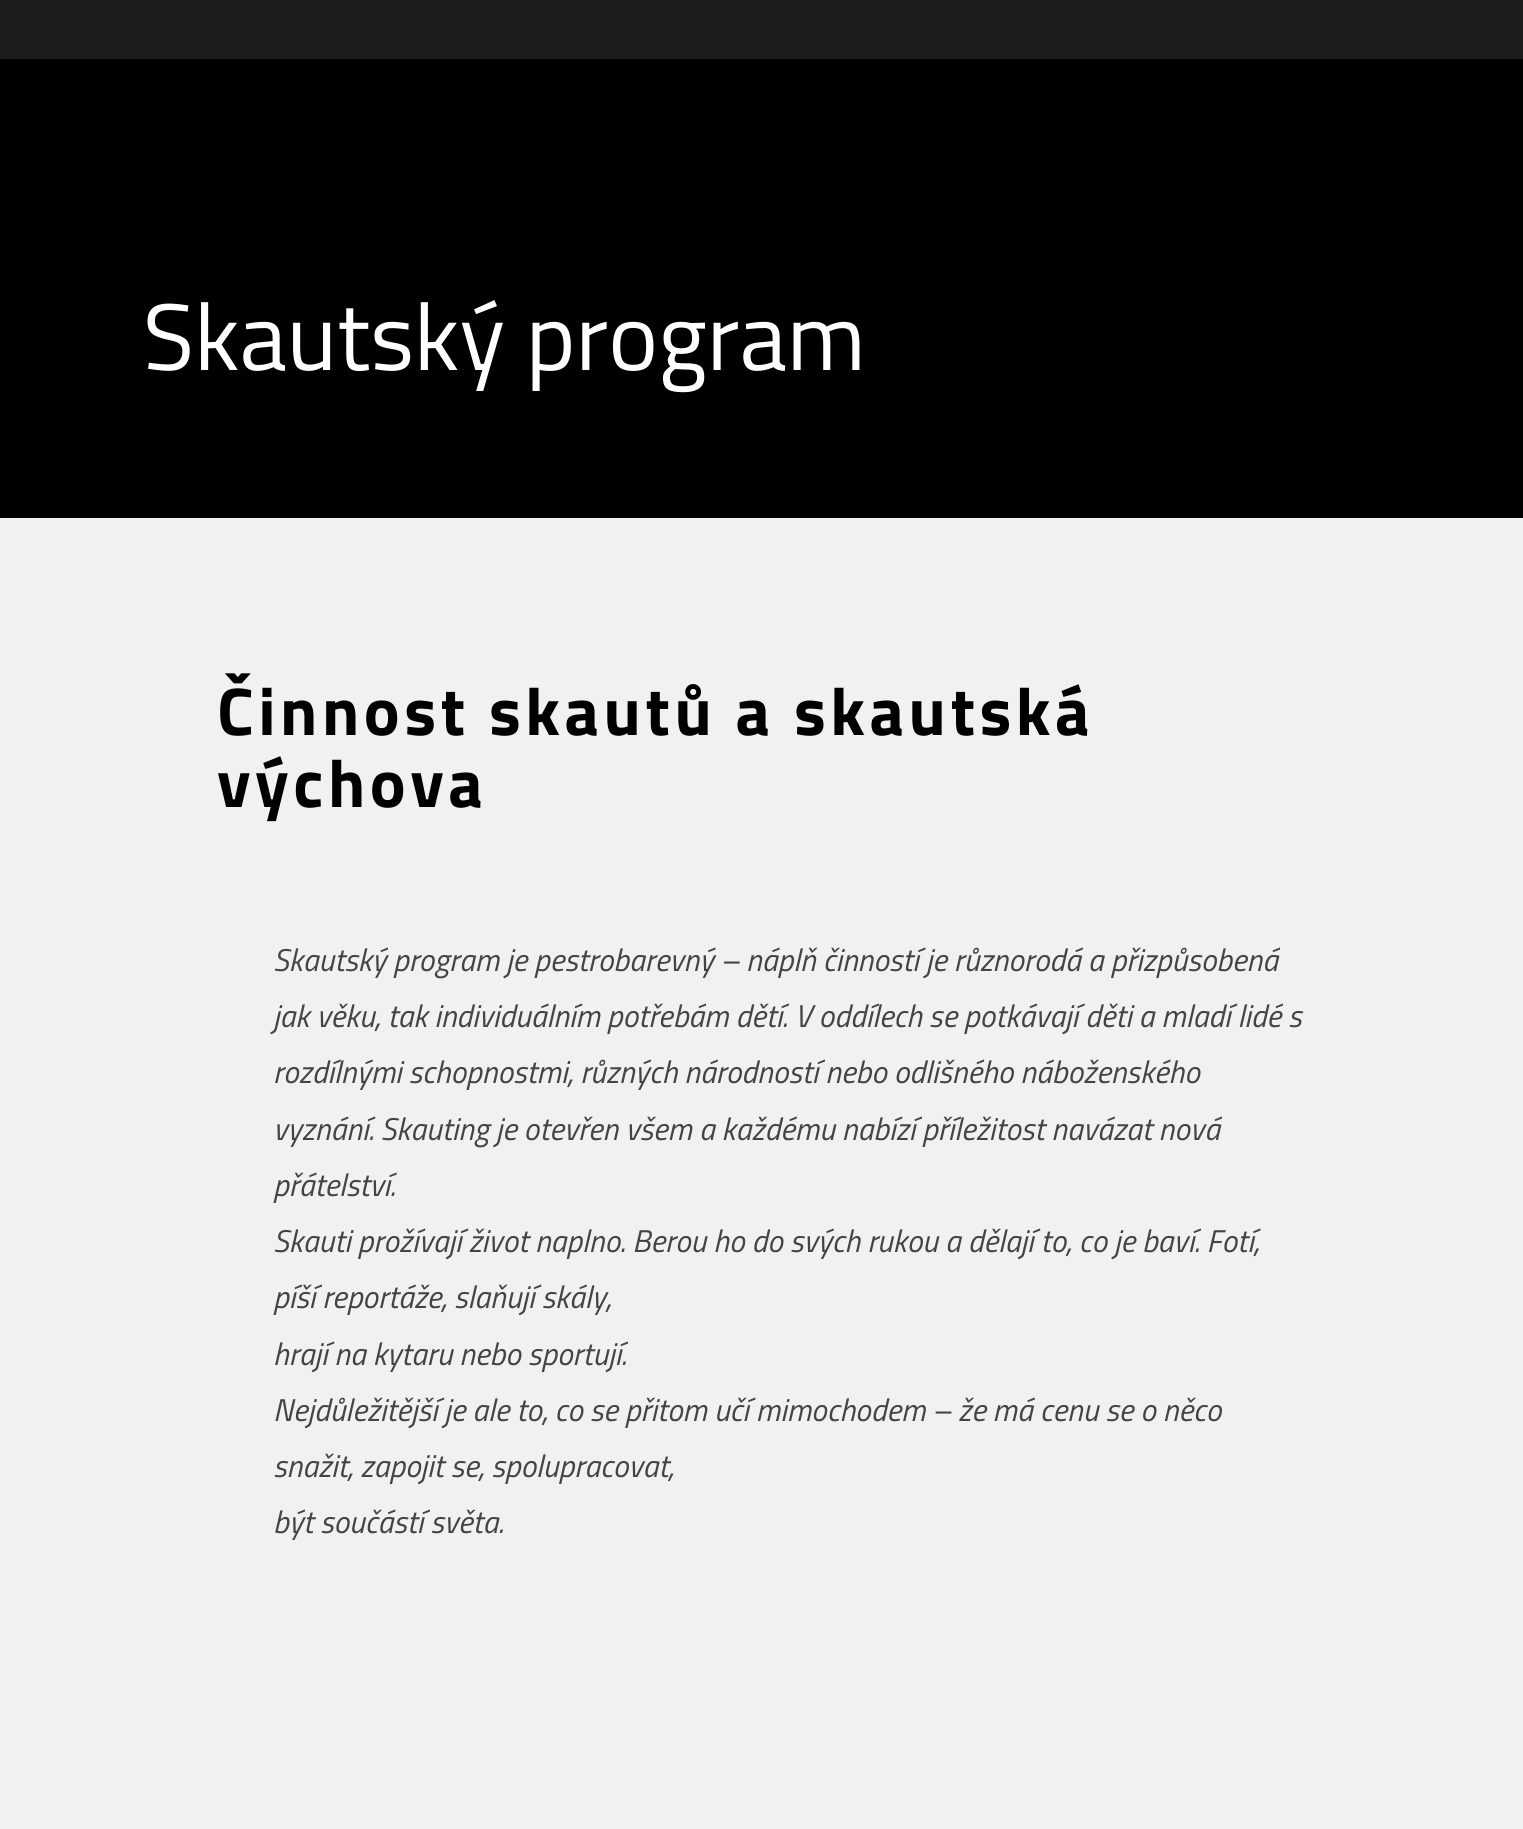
import math
import cairocffi as cairo

surface = cairo.ImageSurface(cairo.FORMAT_RGB24, 1523, 1829)
ctx = cairo.Context(surface)
options = cairo.FontOptions()
options.set_hint_metrics(cairo.HINT_METRICS_OFF)
options.set_hint_style(cairo.HINT_STYLE_NONE)
ctx.set_font_options(options)
ctx.set_miter_limit(4)


def rgb(r, g, b):
    ctx.set_source_rgb(r / 255, g / 255, b / 255)


def face(family, size, italic, bold):
    ctx.select_font_face(family, cairo.FONT_SLANT_ITALIC if italic else cairo.FONT_SLANT_NORMAL, cairo.FONT_WEIGHT_BOLD if bold else cairo.FONT_WEIGHT_NORMAL)
    ctx.set_font_size(size)


def label(x, y, s):
    ctx.move_to(x, y)
    ctx.show_text(s)


def tracked(x, y, s, letter, word):
    ctx.move_to(x, y)
    for ch in s:
        ctx.show_text(ch)
        ctx.rel_move_to(letter + word * (ch == ' '), 0)


def rect(x, y, w, h):
    ctx.rectangle(x, y, w, h)
    ctx.fill()


rgb(241, 241, 241)
ctx.paint()
rgb(0, 0, 0)
rect(0, 59, 1523, 459)
rgb(28, 28, 28)
rect(0, 0, 1523, 59)
face('Titillium Web', 94.5, 0, 0)
rgb(255, 255, 255)
label(143, 370, 'Skautský program')
face('Titillium Web', 67.5, 0, 1)
rgb(0, 0, 0)
tracked(217, 735, 'Činnost skautů a skautská', 4.5, 0)
tracked(217, 807, 'výchova', 4.5, 0)
face('Titillium Web', 31.5, 1, 0)
rgb(68, 68, 68)
label(273, 971, 'Skautský program je pestrobarevný – náplň činností je různorodá a přizpůsobená')
label(273, 1027, 'jak věku, tak individuálním potřebám dětí. V oddílech se potkávají děti a mladí lidé s')
label(273, 1083, 'rozdílnými schopnostmi, různých národností nebo odlišného náboženského')
label(273, 1140, 'vyznání. Skauting je otevřen všem a každému nabízí příležitost navázat nová')
label(273, 1196, 'přátelství.')
label(273, 1252, 'Skauti prožívají život naplno. Berou ho do svých rukou a dělají to, co je baví. Fotí,')
label(273, 1308, 'píší reportáže, slaňují skály,')
label(273, 1365, 'hrají na kytaru nebo sportují.')
label(273, 1421, 'Nejdůležitější je ale to, co se přitom učí mimochodem – že má cenu se o něco')
label(273, 1477, 'snažit, zapojit se, spolupracovat,')
label(273, 1533, 'být součástí světa.')
surface.write_to_png('render.png')
